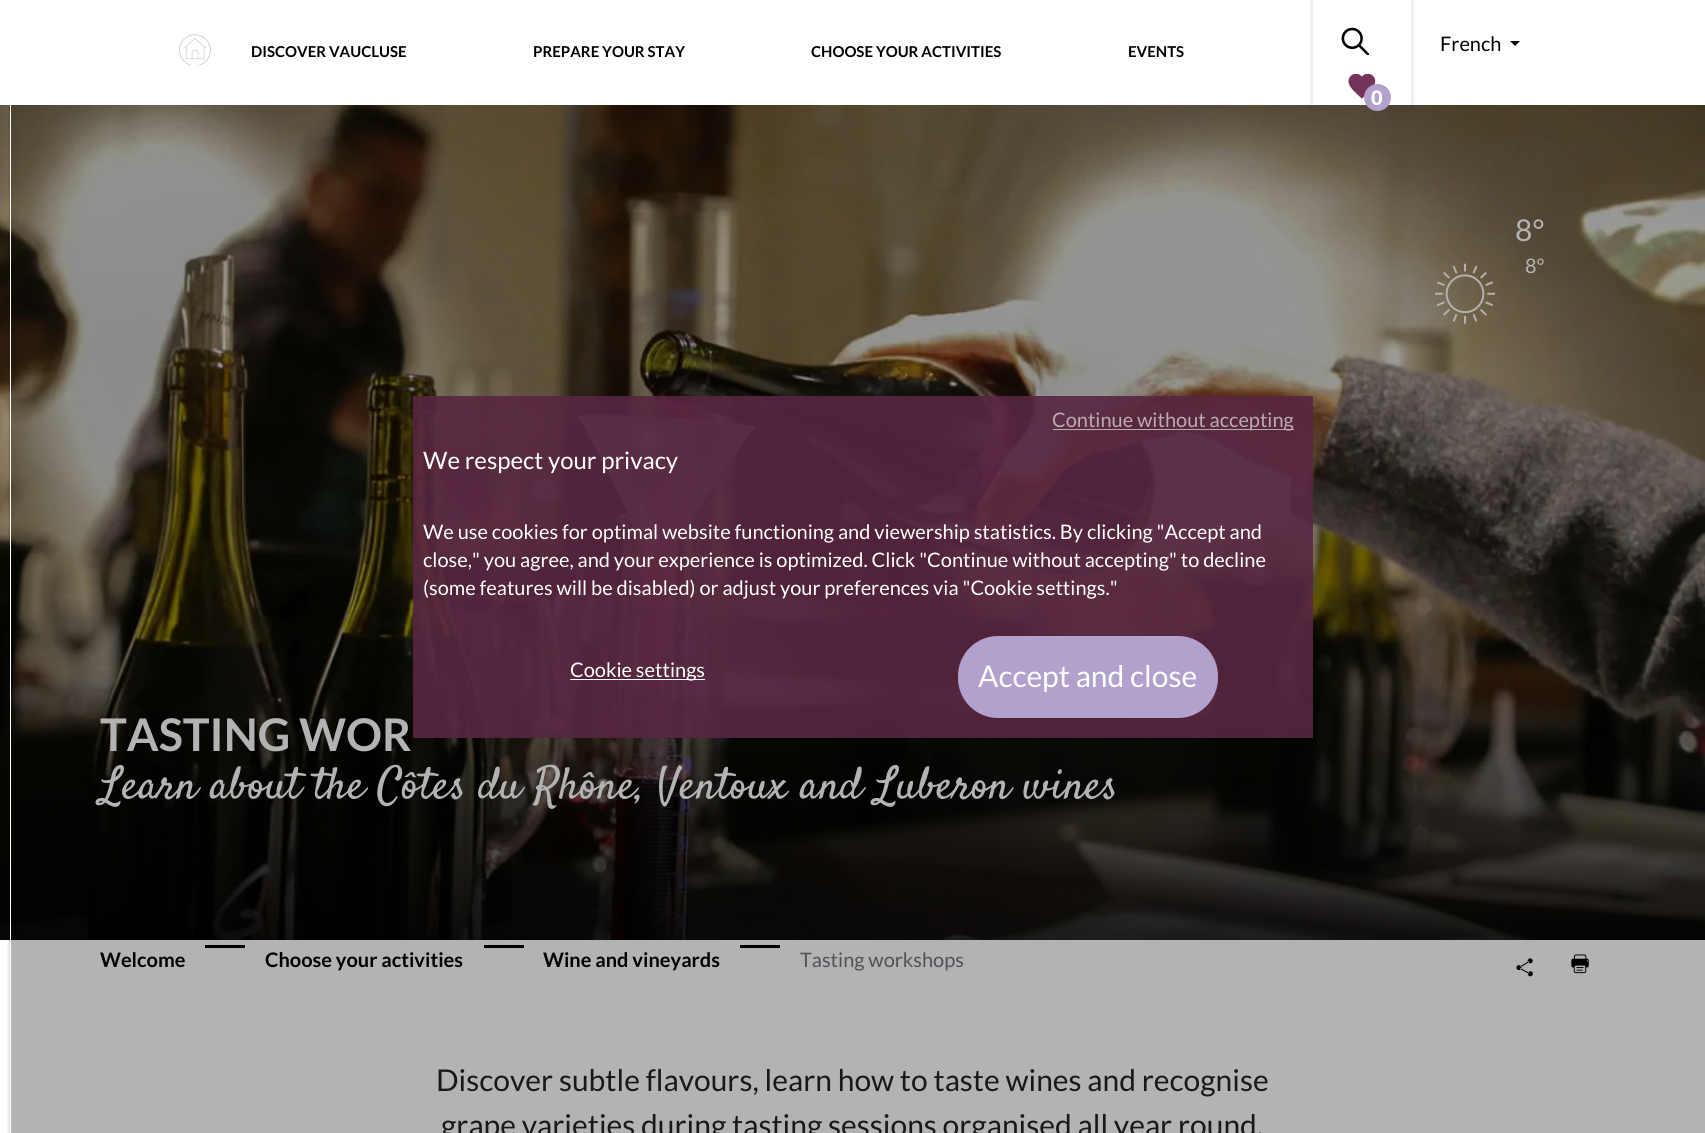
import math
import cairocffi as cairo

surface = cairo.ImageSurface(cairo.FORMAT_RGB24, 1705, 1133)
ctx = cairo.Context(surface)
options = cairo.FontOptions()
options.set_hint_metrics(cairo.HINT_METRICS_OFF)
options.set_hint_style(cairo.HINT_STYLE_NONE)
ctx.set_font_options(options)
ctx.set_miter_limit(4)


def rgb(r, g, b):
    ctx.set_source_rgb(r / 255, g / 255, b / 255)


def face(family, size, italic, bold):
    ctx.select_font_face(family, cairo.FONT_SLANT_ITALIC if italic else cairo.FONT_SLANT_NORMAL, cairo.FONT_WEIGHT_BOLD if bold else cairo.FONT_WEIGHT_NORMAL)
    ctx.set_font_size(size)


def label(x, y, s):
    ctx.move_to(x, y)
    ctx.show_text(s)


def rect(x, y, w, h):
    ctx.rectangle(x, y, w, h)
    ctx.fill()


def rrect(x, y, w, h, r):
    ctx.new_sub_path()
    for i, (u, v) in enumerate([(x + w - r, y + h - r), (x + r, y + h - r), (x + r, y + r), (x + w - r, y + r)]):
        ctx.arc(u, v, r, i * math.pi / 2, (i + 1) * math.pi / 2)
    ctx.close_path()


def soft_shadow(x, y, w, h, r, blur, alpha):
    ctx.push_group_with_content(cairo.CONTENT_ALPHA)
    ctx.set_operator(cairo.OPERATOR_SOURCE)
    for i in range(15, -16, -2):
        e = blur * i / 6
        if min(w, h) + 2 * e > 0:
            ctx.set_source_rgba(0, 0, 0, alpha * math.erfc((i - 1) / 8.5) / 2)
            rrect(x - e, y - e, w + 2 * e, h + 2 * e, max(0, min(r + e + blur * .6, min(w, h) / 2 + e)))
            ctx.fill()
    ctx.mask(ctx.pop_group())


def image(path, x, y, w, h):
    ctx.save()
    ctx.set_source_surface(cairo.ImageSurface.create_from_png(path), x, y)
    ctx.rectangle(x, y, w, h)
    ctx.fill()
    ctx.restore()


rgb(255, 255, 255)
ctx.paint()
rgb(179, 179, 179)
rect(11, 940, 1694, 193)
image('image3.png', 0, 105, 1705, 835)
image('image4.png', 1435, 263, 60, 61)
rgb(0, 0, 0)
rect(205, 945, 40, 3)
rect(484, 945, 40, 3)
rect(740, 945, 40, 3)
image('image5.png', 1516, 958, 17, 19)
image('image6.png', 1571, 954, 18, 20)
ctx.save()
ctx.rectangle(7, 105, 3, 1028)
ctx.clip()
rgb(0, 0, 0)
soft_shadow(13, 0, 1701, 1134, 0, 3, 1)
ctx.restore()
rgb(255, 255, 255)
rect(6, 0, 4, 105)
ctx.rectangle(10.5, 0.5, 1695, 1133)
ctx.set_line_width(1)
ctx.stroke()
image('image0.png', 179, 34, 32, 31)
face('Lato', 15, 0, 1)
rgb(0, 0, 0)
label(251, 57, 'DISCOVER VAUCLUSE')
label(533, 57, 'PREPARE YOUR STAY')
label(811, 57, 'CHOOSE YOUR ACTIVITIES')
label(1128, 57, 'EVENTS')
face('Lato', 20, 0, 0)
label(1440, 51, 'French')
ctx.new_path()
ctx.move_to(1510, 41)
ctx.line_to(1520, 41)
ctx.line_to(1515, 46)
ctx.close_path()
ctx.fill()
rgb(240, 240, 240)
rect(1411, 0, 3, 105)
rect(1310, 0, 3, 105)
image('image1.png', 1341, 27, 29, 28)
image('image2.png', 1348, 74, 28, 25)
rgb(178, 160, 205)
ctx.arc(1377.5, 97.5, 13.5, 0, 2 * math.pi)
ctx.fill()
face('Lato Black', 20, 0, 0)
rgb(255, 255, 255)
label(1371, 105, '0')
face('Lato', 30, 0, 0)
rgb(179, 179, 179)
label(1515, 241, '8°')
face('Lato', 20, 0, 0)
label(1525, 273, '8°')
face('Lato', 45, 0, 1)
label(100, 751, 'TASTING WOR')
face('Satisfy', 45, 0, 0)
label(100, 798, 'Learn about the Côtes du Rhône, Ventoux and Luberon wines')
face('Lato', 20, 0, 1)
rgb(0, 0, 0)
label(100, 967, 'Welcome')
label(265, 967, 'Choose your activities')
label(543, 967, 'Wine and vineyards')
face('Lato', 20, 0, 0)
rgb(76, 82, 88)
label(800, 967, 'Tasting workshops')
face('Lato', 30, 0, 0)
rgb(23, 26, 29)
label(436, 1091, 'Discover subtle flavours, learn how to taste wines and recognise')
label(441, 1136, 'grape varieties during tasting sessions organised all year round.')
ctx.set_source_rgba(0.345, 0.149, 0.255, 0.9)
rect(413, 396, 900, 342)
ctx.set_source_rgba(1, 1, 1, 0.6)
rect(1053, 429, 241, 1)
face('Lato', 20, 0, 0)
rgb(189, 170, 179)
label(1052, 427, 'Continue without accepting')
face('Lato', 24, 0, 0)
rgb(255, 255, 255)
label(423, 469, 'We respect your privacy')
face('Lato', 20, 0, 0)
label(423, 539, 'We use cookies for optimal website functioning and viewership statistics. By clicking "Accept and')
label(423, 567, 'close," you agree, and your experience is optimized. Click "Continue without accepting" to decline')
label(423, 595, '(some features will be disabled) or adjust your preferences via "Cookie settings."')
rect(570, 679, 135, 1)
label(570, 677, 'Cookie settings')
rgb(178, 160, 205)
rrect(958, 636, 260, 82, 40)
ctx.fill()
face('Lato', 30, 0, 0)
rgb(255, 255, 255)
label(978, 687, 'Accept and close')
surface.write_to_png('render.png')
